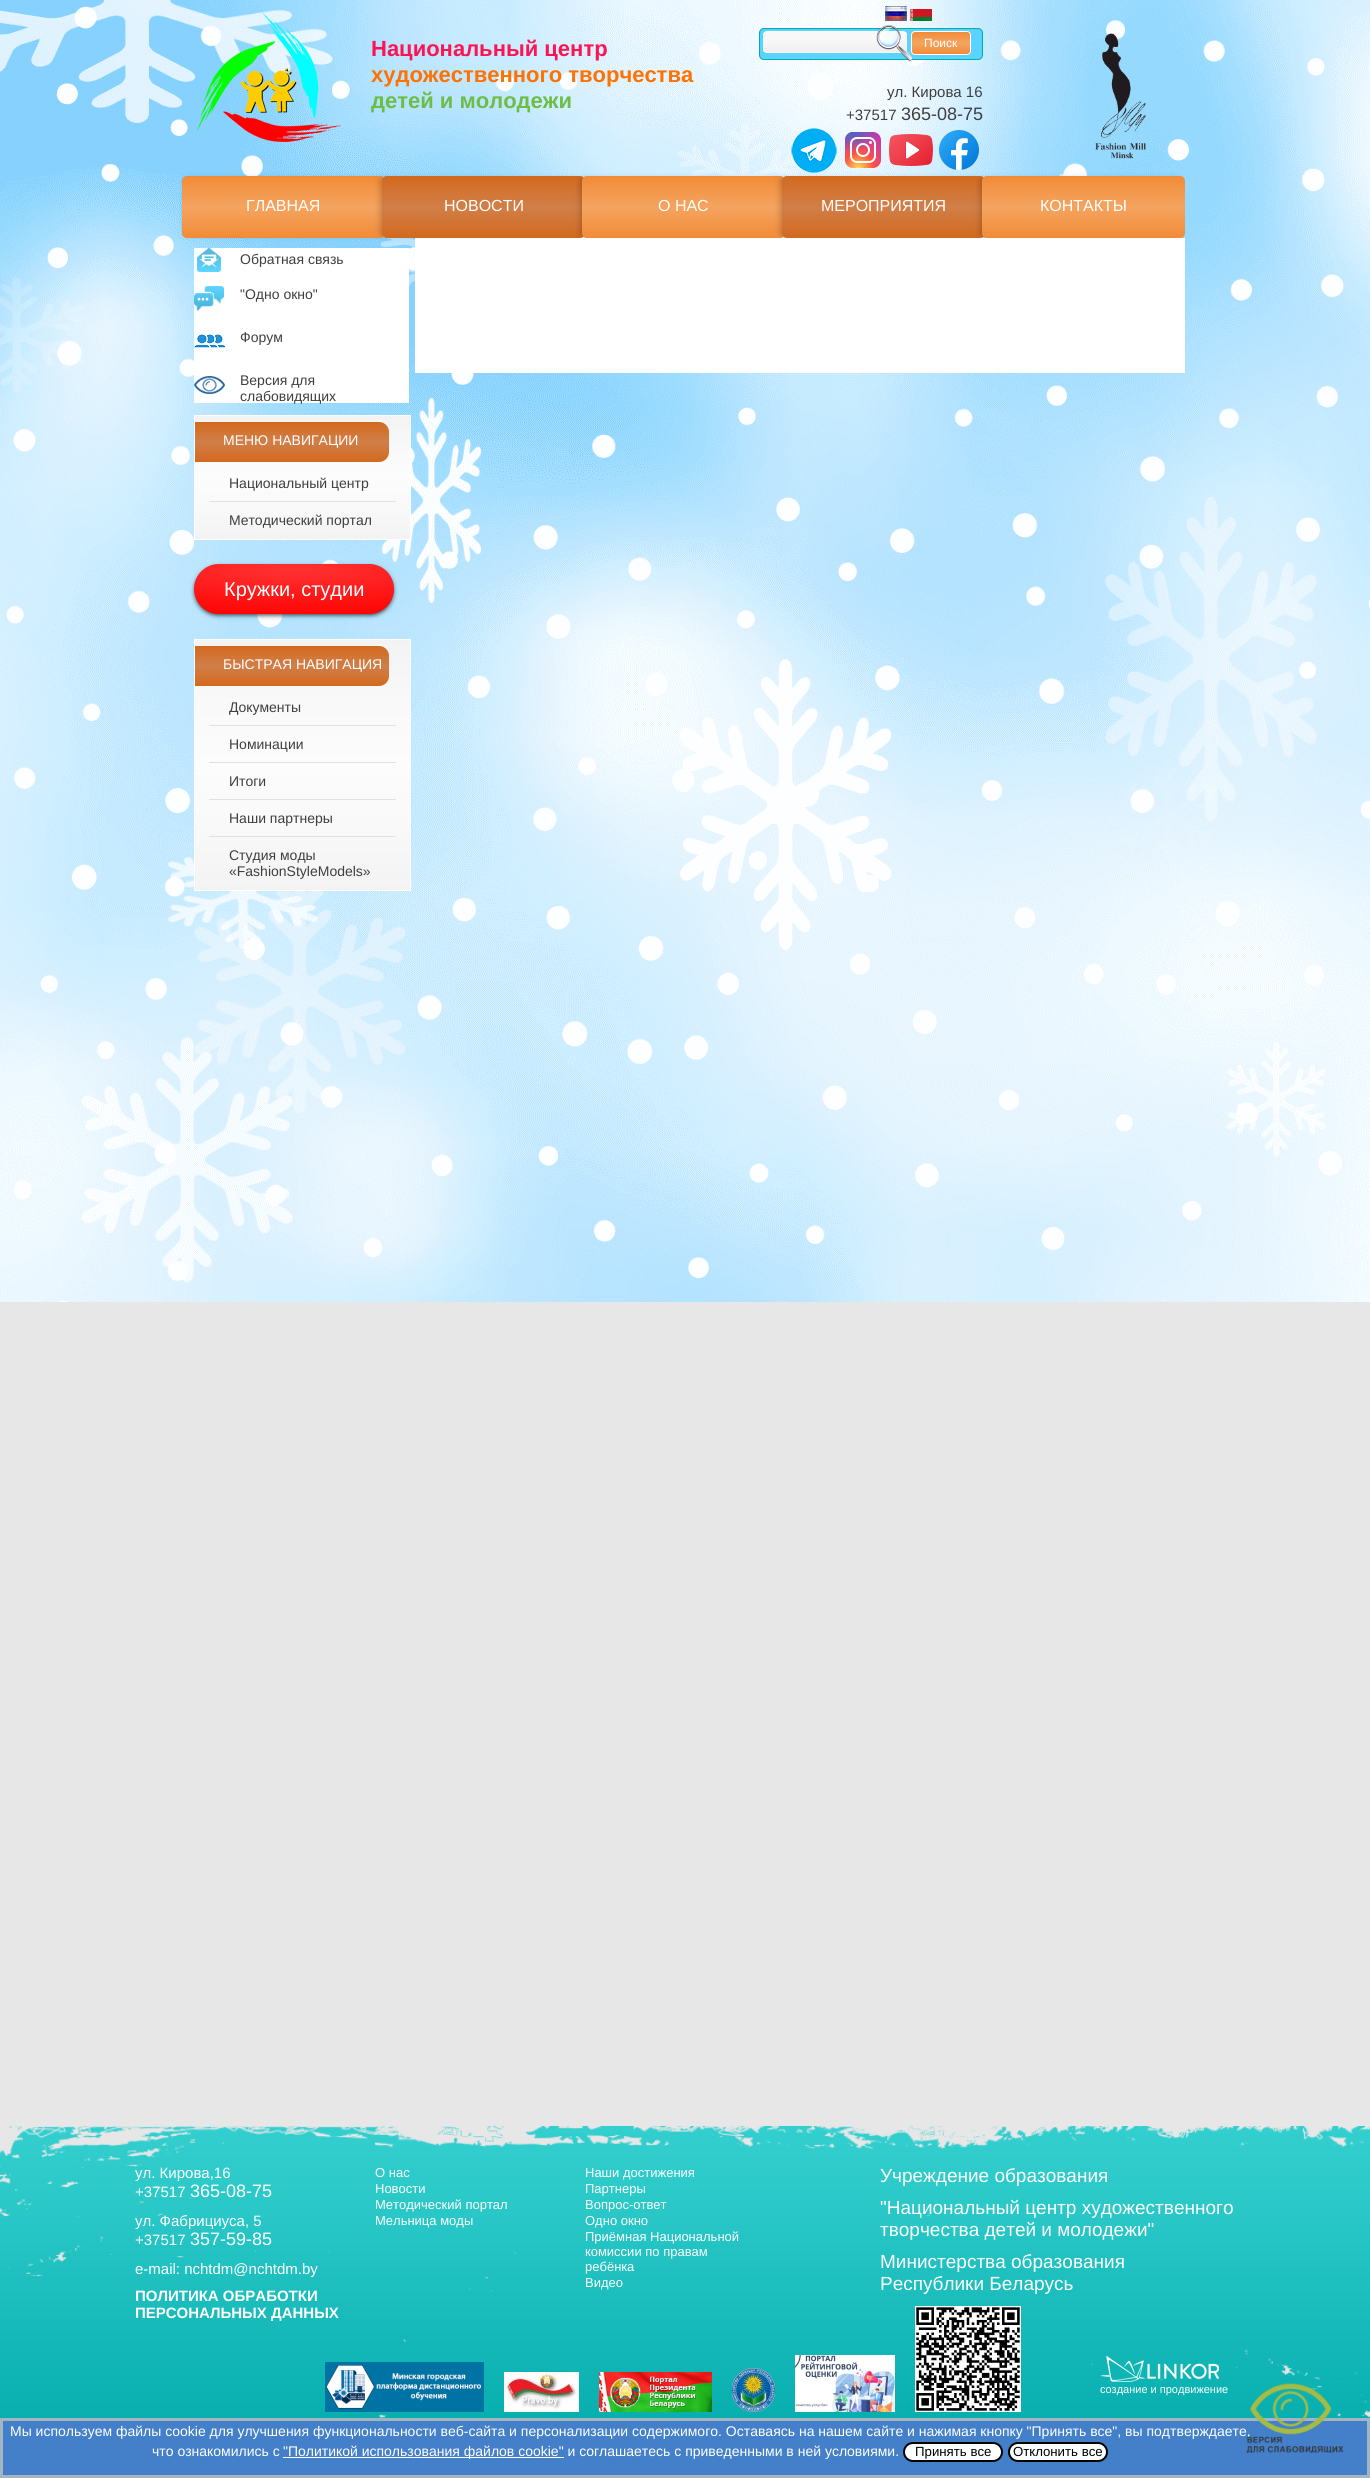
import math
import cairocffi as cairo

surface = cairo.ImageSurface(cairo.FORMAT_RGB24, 1370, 2478)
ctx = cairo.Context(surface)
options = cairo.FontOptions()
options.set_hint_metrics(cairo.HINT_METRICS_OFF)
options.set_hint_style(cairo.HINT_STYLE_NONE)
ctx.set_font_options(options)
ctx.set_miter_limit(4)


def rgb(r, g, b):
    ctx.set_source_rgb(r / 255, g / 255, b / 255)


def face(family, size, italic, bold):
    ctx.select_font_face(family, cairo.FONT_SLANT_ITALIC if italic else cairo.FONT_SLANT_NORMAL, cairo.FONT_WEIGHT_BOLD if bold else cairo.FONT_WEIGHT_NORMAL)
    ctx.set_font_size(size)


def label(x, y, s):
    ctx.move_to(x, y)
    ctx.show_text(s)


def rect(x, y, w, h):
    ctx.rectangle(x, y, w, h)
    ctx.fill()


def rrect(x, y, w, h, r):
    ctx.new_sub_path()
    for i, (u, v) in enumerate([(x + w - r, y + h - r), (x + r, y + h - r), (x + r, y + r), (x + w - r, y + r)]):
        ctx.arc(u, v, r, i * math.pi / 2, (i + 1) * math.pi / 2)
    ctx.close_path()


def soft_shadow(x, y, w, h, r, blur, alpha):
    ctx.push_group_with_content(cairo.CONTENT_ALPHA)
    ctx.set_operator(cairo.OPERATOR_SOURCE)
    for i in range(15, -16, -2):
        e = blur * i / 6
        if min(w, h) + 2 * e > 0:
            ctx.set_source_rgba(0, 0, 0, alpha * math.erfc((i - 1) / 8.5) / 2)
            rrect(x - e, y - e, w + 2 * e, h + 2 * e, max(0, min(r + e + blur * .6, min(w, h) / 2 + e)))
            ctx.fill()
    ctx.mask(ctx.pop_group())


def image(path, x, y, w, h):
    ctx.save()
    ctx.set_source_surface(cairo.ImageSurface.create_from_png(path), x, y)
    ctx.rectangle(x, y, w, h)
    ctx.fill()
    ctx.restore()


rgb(231, 231, 231)
ctx.paint()
image('image0.png', 0, 0, 1370, 1302)
image('image1.png', 197, 12, 144, 130)
image('image2.png', 885, 6, 22, 15)
image('image3.png', 910, 9, 22, 12)
image('image4.png', 1095, 33, 51, 126)
face('Liberation Sans', 22, 0, 1)
rgb(255, 19, 82)
label(371, 56, 'Национальный центр')
rgb(255, 113, 1)
label(371, 82, 'художественного творчества')
rgb(110, 189, 71)
label(371, 108, 'детей и молодежи')
rgb(90, 211, 254)
rrect(759.5, 28.5, 223, 31, 4.5)
ctx.fill_preserve()
rgb(3, 171, 171)
ctx.set_line_width(1)
ctx.stroke()
ctx.save()
rrect(763, 31, 144, 22, 4)
ctx.clip()
gradient = cairo.LinearGradient(835, 32, 835, 52)
gradient.add_color_stop_rgba(0.32, 0.976, 0.973, 0.973, 1)
gradient.add_color_stop_rgba(0.99, 0.937, 0.937, 0.937, 1)
ctx.set_source(gradient)
rect(763, 32, 144, 20)
ctx.restore()
rrect(763.5, 31.5, 143, 21, 3.5)
rgb(255, 255, 255)
ctx.stroke()
ctx.save()
rrect(911, 31, 60, 24, 4)
ctx.clip()
gradient = cairo.LinearGradient(941, 32, 941, 54)
gradient.add_color_stop_rgba(0, 0.949, 0.545, 0.216, 1)
gradient.add_color_stop_rgba(0.5, 0.957, 0.643, 0.376, 1)
gradient.add_color_stop_rgba(1, 0.949, 0.545, 0.216, 1)
ctx.set_source(gradient)
rect(911, 32, 60, 22)
ctx.restore()
rrect(911.5, 31.5, 59, 23, 3.5)
ctx.stroke()
image('image5.png', 876, 25, 37, 37)
face('Liberation Sans', 12, 0, 0)
label(924, 47, 'Поиск')
face('Liberation Sans', 15, 0, 0)
rgb(63, 63, 63)
label(887, 97, 'ул. Кирова 16')
label(846, 120, '+37517')
face('Liberation Sans', 18, 0, 0)
label(901, 120, '365-08-75')
image('image6.png', 791, 128, 46, 45)
image('image7.png', 845, 132, 36, 36)
image('image8.png', 889, 134, 44, 32)
image('image9.png', 939, 130, 40, 40)
rgb(0, 0, 0)
soft_shadow(184, 178, 199, 58, 3, 3, 0.2)
gradient = cairo.LinearGradient(284, 176, 284, 238)
gradient.add_color_stop_rgba(0, 0.949, 0.545, 0.216, 1)
gradient.add_color_stop_rgba(0.5, 0.957, 0.643, 0.376, 1)
gradient.add_color_stop_rgba(1, 0.949, 0.545, 0.216, 1)
ctx.set_source(gradient)
rrect(182, 176, 203, 62, 5)
ctx.fill()
face('Liberation Sans', 16, 0, 0)
rgb(255, 255, 255)
label(246, 211, 'ГЛАВНАЯ')
rgb(0, 0, 0)
soft_shadow(380, 178, 199, 58, 3, 3, 0.2)
gradient = cairo.LinearGradient(484, 176, 484, 238)
gradient.add_color_stop_rgba(0, 0.824, 0.412, 0.118, 1)
gradient.add_color_stop_rgba(0.5, 0.82, 0.498, 0.286, 1)
gradient.add_color_stop_rgba(1, 0.824, 0.412, 0.118, 1)
ctx.set_source(gradient)
rrect(382, 176, 203, 62, 5)
ctx.fill()
rgb(255, 255, 255)
label(444, 211, 'НОВОСТИ')
rgb(0, 0, 0)
soft_shadow(580, 178, 199, 58, 3, 3, 0.2)
gradient = cairo.LinearGradient(684, 176, 684, 238)
gradient.add_color_stop_rgba(0, 0.949, 0.545, 0.216, 1)
gradient.add_color_stop_rgba(0.5, 0.957, 0.643, 0.376, 1)
gradient.add_color_stop_rgba(1, 0.949, 0.545, 0.216, 1)
ctx.set_source(gradient)
rrect(582, 176, 203, 62, 5)
ctx.fill()
rgb(255, 255, 255)
label(658, 211, 'О НАС')
rgb(0, 0, 0)
soft_shadow(780, 178, 199, 58, 3, 3, 0.2)
gradient = cairo.LinearGradient(884, 176, 884, 238)
gradient.add_color_stop_rgba(0, 0.824, 0.412, 0.118, 1)
gradient.add_color_stop_rgba(0.5, 0.82, 0.498, 0.286, 1)
gradient.add_color_stop_rgba(1, 0.824, 0.412, 0.118, 1)
ctx.set_source(gradient)
rrect(782, 176, 203, 62, 5)
ctx.fill()
rgb(255, 255, 255)
label(821, 211, 'МЕРОПРИЯТИЯ')
rgb(0, 0, 0)
soft_shadow(980, 178, 199, 58, 3, 3, 0.2)
gradient = cairo.LinearGradient(1084, 176, 1084, 238)
gradient.add_color_stop_rgba(0, 0.949, 0.545, 0.216, 1)
gradient.add_color_stop_rgba(0.5, 0.957, 0.643, 0.376, 1)
gradient.add_color_stop_rgba(1, 0.949, 0.545, 0.216, 1)
ctx.set_source(gradient)
rrect(982, 176, 203, 62, 5)
ctx.fill()
rgb(255, 255, 255)
label(1040, 211, 'КОНТАКТЫ')
rect(194, 248, 215, 155)
image('image10.png', 197, 248, 24, 24)
face('Liberation Sans', 14, 0, 0)
rgb(63, 63, 63)
label(240, 264, 'Обратная связь')
image('image11.png', 194, 286, 30, 26)
label(240, 299, '"Одно окно"')
image('image12.png', 194, 334, 31, 14)
label(240, 342, 'Форум')
image('image13.png', 194, 376, 31, 18)
label(240, 385, 'Версия для')
label(240, 401, 'слабовидящих')
gradient = cairo.LinearGradient(303, 416, 303, 539)
gradient.add_color_stop_rgba(0, 0.953, 0.953, 0.953, 1)
gradient.add_color_stop_rgba(0.25, 0.976, 0.976, 0.976, 1)
gradient.add_color_stop_rgba(0.5, 0.988, 0.988, 0.988, 1)
gradient.add_color_stop_rgba(0.75, 0.976, 0.976, 0.976, 1)
gradient.add_color_stop_rgba(1, 0.953, 0.953, 0.953, 1)
ctx.set_source(gradient)
rect(195, 416, 215, 123)
ctx.rectangle(194.5, 415.5, 216, 124)
rgb(255, 255, 255)
ctx.stroke()
gradient = cairo.LinearGradient(292, 422, 292, 462)
gradient.add_color_stop_rgba(0, 0.824, 0.412, 0.118, 1)
gradient.add_color_stop_rgba(0.5, 0.82, 0.498, 0.286, 1)
gradient.add_color_stop_rgba(1, 0.824, 0.412, 0.118, 1)
ctx.set_source(gradient)
ctx.new_path()
ctx.move_to(195, 422)
ctx.line_to(379, 422)
ctx.curve_to(384.5, 422, 389, 426.5, 389, 432)
ctx.line_to(389, 452)
ctx.curve_to(389, 457.5, 384.5, 462, 379, 462)
ctx.line_to(195, 462)
ctx.close_path()
ctx.fill()
rgb(255, 255, 255)
label(223, 445, 'МЕНЮ НАВИГАЦИИ')
rgb(225, 225, 225)
rect(209, 501, 187, 1)
rgb(63, 63, 63)
label(229, 488, 'Национальный центр')
label(229, 525, 'Методический портал')
rgb(0, 0, 0)
soft_shadow(195, 567, 198, 48, 24, 2.5, 0.8)
rgb(255, 0, 0)
rrect(194, 564, 200, 50, 25)
ctx.fill()
gradient = cairo.RadialGradient(0, 0, 0, 0, 0, 1)
gradient.set_matrix(cairo.Matrix(1 / 300, 0, 0, 1 / 50, -1 * 294 / 300, -1 * 569 / 50))
gradient.add_color_stop_rgba(0, 1, 1, 1, 0.2)
gradient.add_color_stop_rgba(1, 1, 1, 1, 0)
ctx.set_source(gradient)
rrect(194, 564, 200, 50, 25)
ctx.fill()
face('Liberation Sans', 20, 0, 0)
rgb(255, 255, 255)
label(224, 596, 'Кружки, студии')
gradient = cairo.LinearGradient(303, 640, 303, 890)
gradient.add_color_stop_rgba(0, 0.953, 0.953, 0.953, 1)
gradient.add_color_stop_rgba(0.25, 0.976, 0.976, 0.976, 1)
gradient.add_color_stop_rgba(0.5, 0.988, 0.988, 0.988, 1)
gradient.add_color_stop_rgba(0.75, 0.976, 0.976, 0.976, 1)
gradient.add_color_stop_rgba(1, 0.953, 0.953, 0.953, 1)
ctx.set_source(gradient)
rect(195, 640, 215, 250)
ctx.rectangle(194.5, 639.5, 216, 251)
rgb(255, 255, 255)
ctx.stroke()
gradient = cairo.LinearGradient(292, 646, 292, 686)
gradient.add_color_stop_rgba(0, 0.824, 0.412, 0.118, 1)
gradient.add_color_stop_rgba(0.5, 0.82, 0.498, 0.286, 1)
gradient.add_color_stop_rgba(1, 0.824, 0.412, 0.118, 1)
ctx.set_source(gradient)
ctx.new_path()
ctx.move_to(195, 646)
ctx.line_to(379, 646)
ctx.curve_to(384.5, 646, 389, 650.5, 389, 656)
ctx.line_to(389, 676)
ctx.curve_to(389, 681.5, 384.5, 686, 379, 686)
ctx.line_to(195, 686)
ctx.close_path()
ctx.fill()
face('Liberation Sans', 14, 0, 0)
rgb(255, 255, 255)
label(223, 669, 'БЫСТРАЯ НАВИГАЦИЯ')
rgb(225, 225, 225)
rect(209, 725, 187, 1)
rgb(63, 63, 63)
label(229, 712, 'Документы')
rgb(225, 225, 225)
rect(209, 762, 187, 1)
rgb(63, 63, 63)
label(229, 749, 'Номинации')
rgb(225, 225, 225)
rect(209, 799, 187, 1)
rgb(63, 63, 63)
label(229, 786, 'Итоги')
rgb(225, 225, 225)
rect(209, 836, 187, 1)
rgb(63, 63, 63)
label(229, 823, 'Наши партнеры')
label(229, 860, 'Студия моды')
label(229, 876, '«FashionStyleModels»')
rgb(255, 255, 255)
rect(415, 238, 770, 135)
image('image14.png', 0, 2126, 1370, 292)
face('Liberation Sans', 15, 0, 0)
label(135, 2178, 'ул. Кирова,16')
label(135, 2197, '+37517')
face('Liberation Sans', 18, 0, 0)
label(190, 2197, '365-08-75')
face('Liberation Sans', 15, 0, 0)
label(135, 2226, 'ул. Фабрициуса, 5')
label(135, 2245, '+37517')
face('Liberation Sans', 18, 0, 0)
label(190, 2245, '357-59-85')
face('Liberation Sans', 15, 0, 0)
label(135, 2274, 'e-mail: nchtdm@nchtdm.by')
face('Liberation Sans', 15, 0, 1)
label(135, 2301, 'ПОЛИТИКА ОБРАБОТКИ')
label(135, 2318, 'ПЕРСОНАЛЬНЫХ ДАННЫХ')
face('Liberation Sans', 13, 0, 0)
label(375, 2177, 'О нас')
label(375, 2193, 'Новости')
label(375, 2209, 'Методический портал')
label(375, 2225, 'Мельница моды')
label(585, 2177, 'Наши достижения')
label(585, 2193, 'Партнеры')
label(585, 2209, 'Вопрос-ответ')
label(585, 2225, 'Одно окно')
label(585, 2241, 'Приёмная Национальной')
label(585, 2256, 'комиссии по правам')
label(585, 2271, 'ребёнка')
label(585, 2287, 'Видео')
face('Liberation Sans', 19, 0, 0)
label(880, 2182, 'Учреждение образования')
label(880, 2214, '"Национальный центр художественного')
label(880, 2236, 'творчества детей и молодежи"')
label(880, 2268, 'Министерства образования')
label(880, 2290, 'Республики Беларусь')
image('image15.png', 325, 2362, 159, 50)
image('image16.png', 504, 2372, 75, 40)
image('image17.png', 599, 2372, 113, 40)
image('image18.png', 732, 2368, 43, 44)
image('image19.png', 795, 2355, 100, 57)
image('image20.png', 915, 2306, 106, 106)
image('image21.png', 1100, 2356, 119, 26)
face('Liberation Sans', 11, 0, 0)
label(1100, 2393, 'создание и продвижение')
rgb(68, 128, 201)
ctx.rectangle(1.5, 2419.5, 1367, 57)
ctx.fill_preserve()
rgb(162, 181, 194)
ctx.set_line_width(3)
ctx.stroke()
face('Liberation Sans', 14, 0, 0)
rgb(255, 255, 255)
label(10, 2436, 'Мы используем файлы cookie для улучшения функциональности веб-сайта и персонализации содержимого. Оставаясь на нашем сайте и нажимая кнопку "Принять все", вы подтверждаете,')
label(152, 2456, 'что ознакомились с')
rect(283, 2457, 281, 1)
label(283, 2456, '"Политикой использования файлов cookie" и соглашаетесь с приведенными в ней условиями.')
rgb(254, 255, 255)
rrect(904, 2443, 98, 18, 9)
ctx.fill_preserve()
rgb(0, 0, 0)
ctx.set_line_width(2)
ctx.stroke()
face('Liberation Sans', 13.25, 0, 0)
label(915, 2456, 'Принять все')
rgb(254, 255, 255)
rrect(1009, 2443, 98, 18, 9)
ctx.fill_preserve()
rgb(0, 0, 0)
ctx.stroke()
label(1013, 2456, 'Отклонить все')
image('image22.png', 1246, 2383, 98, 70)
surface.write_to_png('render.png')
